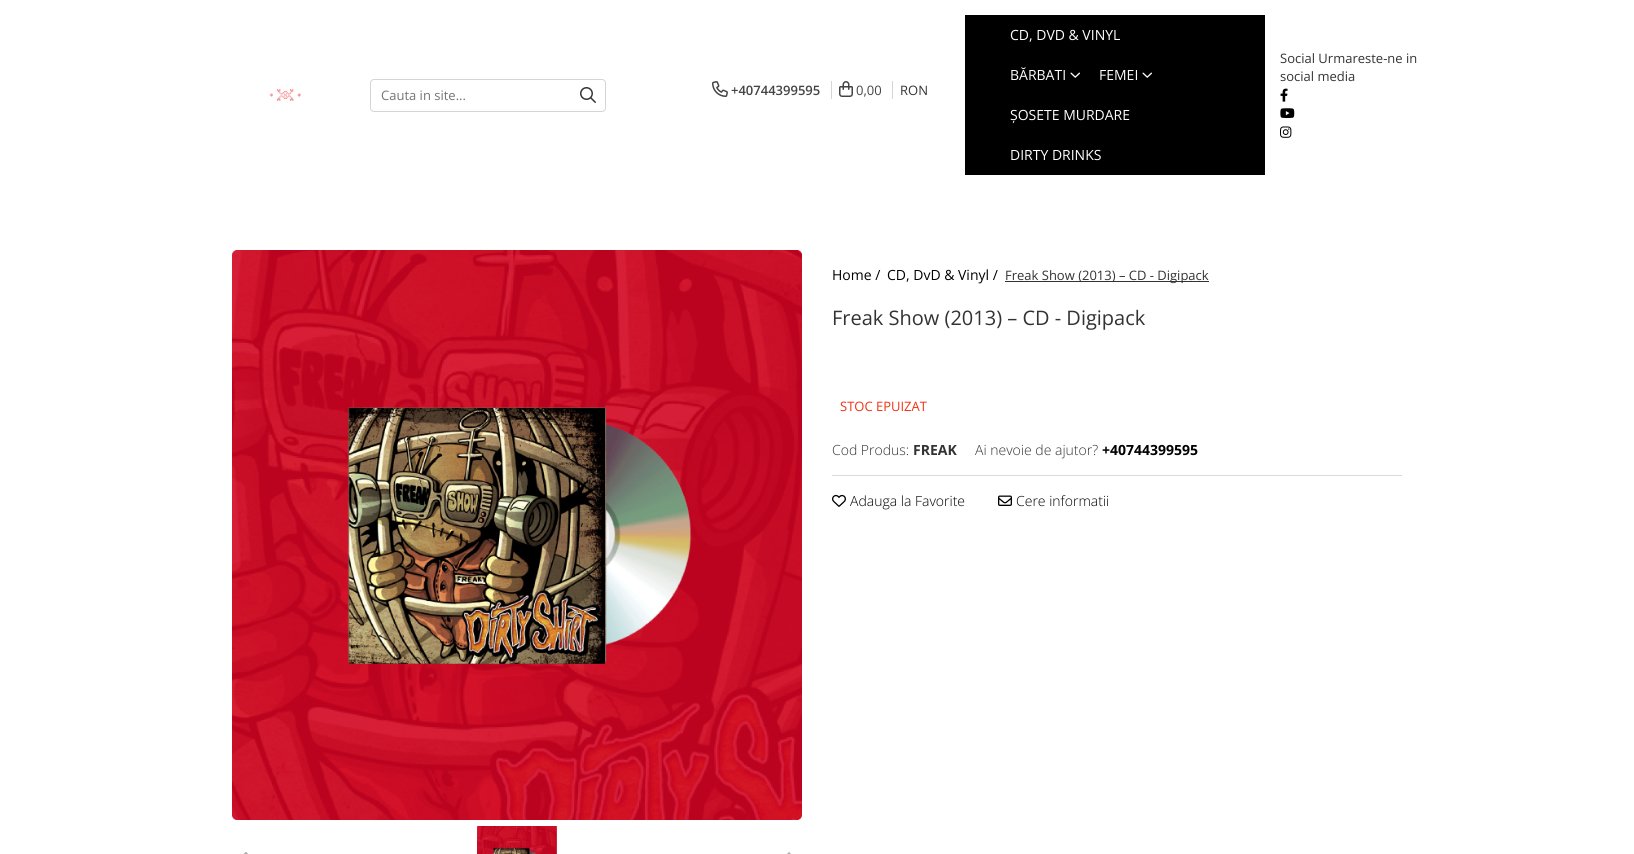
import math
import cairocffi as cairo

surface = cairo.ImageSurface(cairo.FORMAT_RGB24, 1634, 854)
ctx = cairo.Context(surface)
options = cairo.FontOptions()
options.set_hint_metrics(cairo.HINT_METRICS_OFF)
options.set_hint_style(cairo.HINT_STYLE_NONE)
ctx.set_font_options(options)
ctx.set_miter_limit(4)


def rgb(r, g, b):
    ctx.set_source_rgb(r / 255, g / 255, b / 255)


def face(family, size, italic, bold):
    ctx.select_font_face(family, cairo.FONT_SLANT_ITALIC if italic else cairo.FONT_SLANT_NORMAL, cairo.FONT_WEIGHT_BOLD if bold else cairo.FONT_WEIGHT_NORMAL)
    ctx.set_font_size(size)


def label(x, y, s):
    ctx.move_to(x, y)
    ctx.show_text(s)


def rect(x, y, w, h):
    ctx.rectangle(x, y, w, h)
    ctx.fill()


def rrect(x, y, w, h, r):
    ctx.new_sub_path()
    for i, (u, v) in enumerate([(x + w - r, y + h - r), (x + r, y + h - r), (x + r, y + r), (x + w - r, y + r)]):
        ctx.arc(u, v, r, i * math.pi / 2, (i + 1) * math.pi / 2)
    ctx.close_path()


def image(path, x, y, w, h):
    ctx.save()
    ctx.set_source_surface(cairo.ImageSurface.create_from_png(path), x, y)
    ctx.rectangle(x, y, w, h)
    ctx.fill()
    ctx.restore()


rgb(255, 255, 255)
ctx.paint()
rgb(0, 0, 0)
rect(965, 15, 300, 160)
face('Open Sans', 14, 0, 0)
rgb(255, 255, 255)
label(1010, 40, 'CD, DVD & VINYL')
label(1010, 80, 'BĂRBATI')
image('image0.png', 1070, 72, 10, 6)
label(1099, 80, 'FEMEI')
image('image0.png', 1142, 72, 10, 6)
label(1010, 120, 'ȘOSETE MURDARE')
label(1010, 160, 'DIRTY DRINKS')
face('Open Sans', 13, 0, 0)
rgb(51, 51, 51)
label(1280, 63, 'Social Urmareste-ne in')
label(1280, 81, 'social media')
image('image1.png', 1280, 88, 8, 14)
image('image2.png', 1280, 108, 15, 10)
image('image3.png', 1280, 126, 12, 12)
image('image4.png', 269, 88, 32, 13)
rrect(370.5, 79.5, 235, 32, 3.5)
rgb(213, 213, 213)
ctx.set_line_width(1)
ctx.stroke()
rgb(117, 117, 117)
label(381, 100, 'Cauta in site...')
image('image5.png', 580, 87, 16, 16)
image('image6.png', 712, 81, 16, 16)
face('Open Sans SemiBold', 13, 0, 0)
rgb(68, 68, 68)
label(731, 95, '+40744399595')
rgb(213, 213, 213)
rect(831, 81, 1, 18)
image('image7.png', 839, 81, 14, 16)
face('Open Sans', 13, 0, 0)
rgb(68, 68, 68)
label(856, 95, '0,00')
rgb(51, 51, 51)
label(900, 95, 'RON')
rgb(213, 213, 213)
rect(892, 81, 1, 18)
image('image8.png', 232, 250, 570, 570)
image('image9.png', 243, 852, 5, 2)
image('image10.png', 477, 826, 80, 28)
image('image11.png', 787, 852, 4, 2)
face('Open Sans', 14, 0, 0)
rgb(0, 0, 0)
label(832, 280, 'Home /')
label(887, 280, 'CD, DvD & Vinyl /')
rgb(51, 51, 51)
rect(1005, 281, 204, 1)
face('Open Sans', 13, 0, 0)
label(1005, 280, 'Freak Show (2013) – CD - Digipack')
face('Open Sans', 20, 0, 0)
label(832, 325, 'Freak Show (2013) – CD - Digipack')
face('Open Sans', 13, 0, 0)
rgb(238, 50, 20)
label(840, 411, 'STOC EPUIZAT')
face('Open Sans Light', 14, 0, 0)
rgb(51, 51, 51)
label(832, 455, 'Cod Produs:')
face('Open Sans', 14, 0, 1)
label(913, 455, 'FREAK')
face('Open Sans Light', 14, 0, 0)
label(975, 455, 'Ai nevoie de ajutor?')
face('Open Sans', 14, 0, 1)
rgb(0, 0, 0)
label(1102, 455, '+40744399595')
rgb(219, 219, 219)
rect(832, 475, 570, 1)
image('image12.png', 832, 494, 14, 13)
face('Open Sans Light', 14, 0, 0)
rgb(0, 0, 0)
label(850, 506, 'Adauga la Favorite')
image('image13.png', 998, 495, 14, 11)
label(1016, 506, 'Cere informatii')
surface.write_to_png('render.png')
